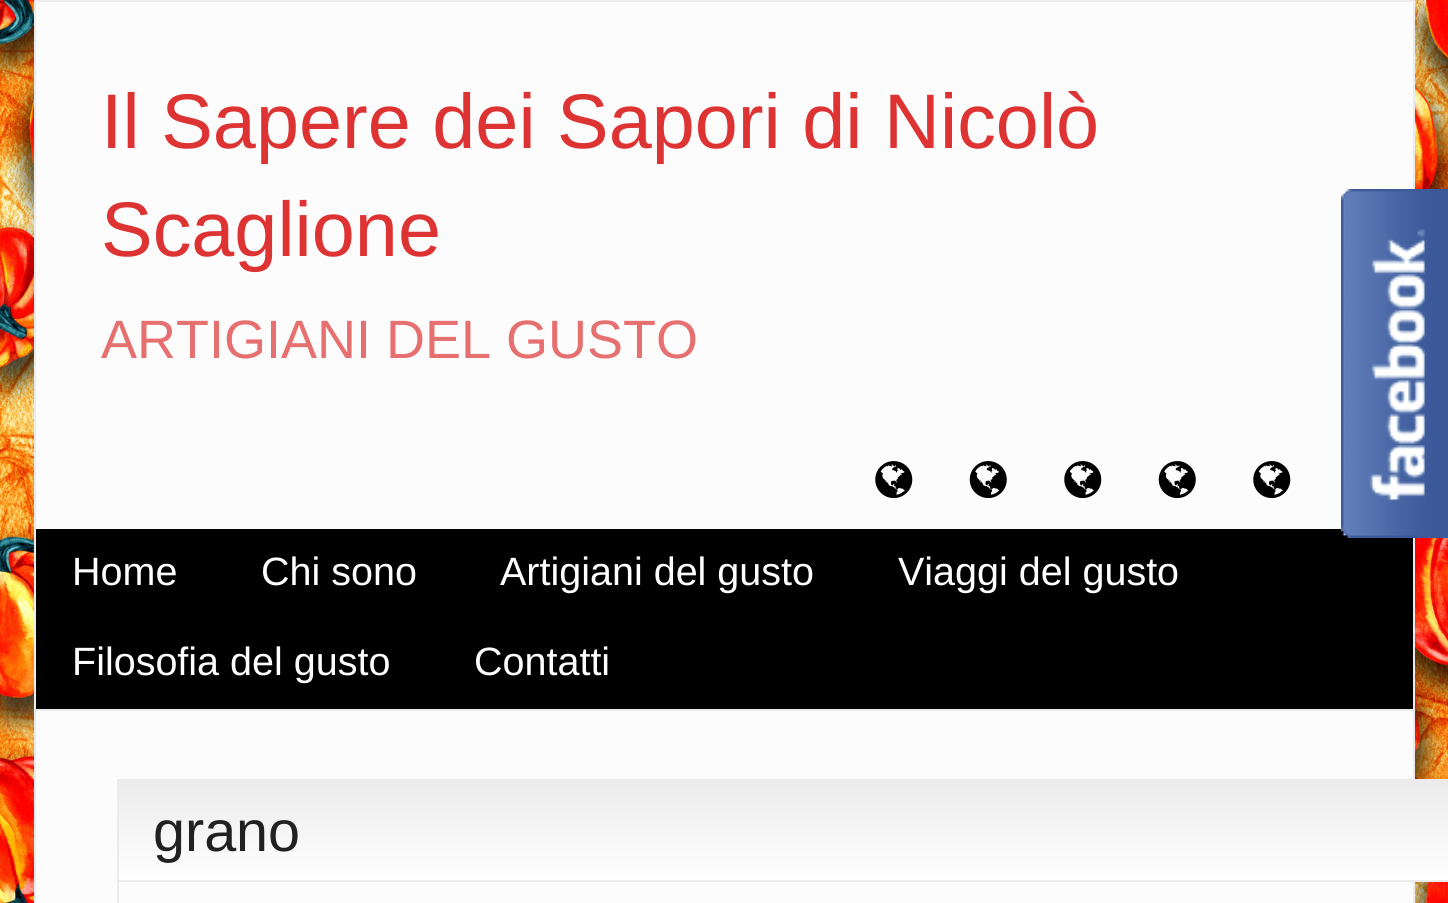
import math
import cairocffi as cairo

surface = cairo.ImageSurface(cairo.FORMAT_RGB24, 1448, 903)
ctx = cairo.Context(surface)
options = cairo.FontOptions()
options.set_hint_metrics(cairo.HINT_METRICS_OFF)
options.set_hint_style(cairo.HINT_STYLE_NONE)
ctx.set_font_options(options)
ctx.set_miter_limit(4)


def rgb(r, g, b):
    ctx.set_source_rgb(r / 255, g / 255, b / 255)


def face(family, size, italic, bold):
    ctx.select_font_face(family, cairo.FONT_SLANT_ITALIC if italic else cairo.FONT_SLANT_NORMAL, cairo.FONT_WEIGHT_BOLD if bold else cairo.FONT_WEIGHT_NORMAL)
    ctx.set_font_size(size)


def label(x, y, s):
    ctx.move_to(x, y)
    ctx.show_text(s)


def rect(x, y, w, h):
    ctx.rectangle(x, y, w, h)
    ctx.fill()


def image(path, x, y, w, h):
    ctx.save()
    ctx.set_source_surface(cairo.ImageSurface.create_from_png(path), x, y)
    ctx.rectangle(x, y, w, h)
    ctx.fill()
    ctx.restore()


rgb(255, 255, 255)
ctx.paint()
image('image0.png', 0, 0, 1448, 903)
rgb(252, 252, 252)
ctx.rectangle(35, 1, 1379, 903)
ctx.fill_preserve()
rgb(235, 235, 235)
ctx.stroke()
face('Liberation Sans', 77.4, 0, 0)
rgb(221, 51, 51)
label(101, 148, 'Il Sapere dei Sapori di Nicolò')
label(101, 256, 'Scaglione')
face('Liberation Sans', 54, 0, 0)
rgb(230, 111, 111)
label(101, 358, 'ARTIGIANI DEL GUSTO')
image('image1.png', 875, 461, 38, 38)
image('image2.png', 969, 461, 38, 38)
image('image1.png', 1064, 461, 38, 38)
image('image2.png', 1158, 461, 38, 38)
image('image1.png', 1253, 461, 38, 38)
rgb(0, 0, 0)
rect(36, 529, 1377, 180)
face('Liberation Sans', 39.5, 0, 0)
rgb(255, 255, 255)
label(72, 585, 'Home')
label(261, 585, 'Chi sono')
label(500, 585, 'Artigiani del gusto')
label(898, 585, 'Viaggi del gusto')
label(72, 675, 'Filosofia del gusto')
label(474, 675, 'Contatti')
rgb(235, 235, 235)
rect(36, 709, 1377, 2)
ctx.rectangle(118, 780, 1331, 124)
ctx.stroke()
gradient = cairo.LinearGradient(119, 781, 119, 880)
gradient.add_color_stop_rgba(0, 0.922, 0.922, 0.922, 1)
gradient.add_color_stop_rgba(1, 1, 1, 1, 1)
ctx.set_source(gradient)
rect(119, 781, 1329, 99)
gradient = cairo.LinearGradient(119, 880, 119, 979)
gradient.add_color_stop_rgba(0, 0.922, 0.922, 0.922, 1)
gradient.add_color_stop_rgba(1, 1, 1, 1, 1)
ctx.set_source(gradient)
rect(119, 880, 1329, 2)
face('Liberation Sans', 57.5, 0, 0)
rgb(33, 33, 33)
label(153, 851, 'grano')
image('image3.png', 1341, 189, 107, 349)
surface.write_to_png('render.png')
